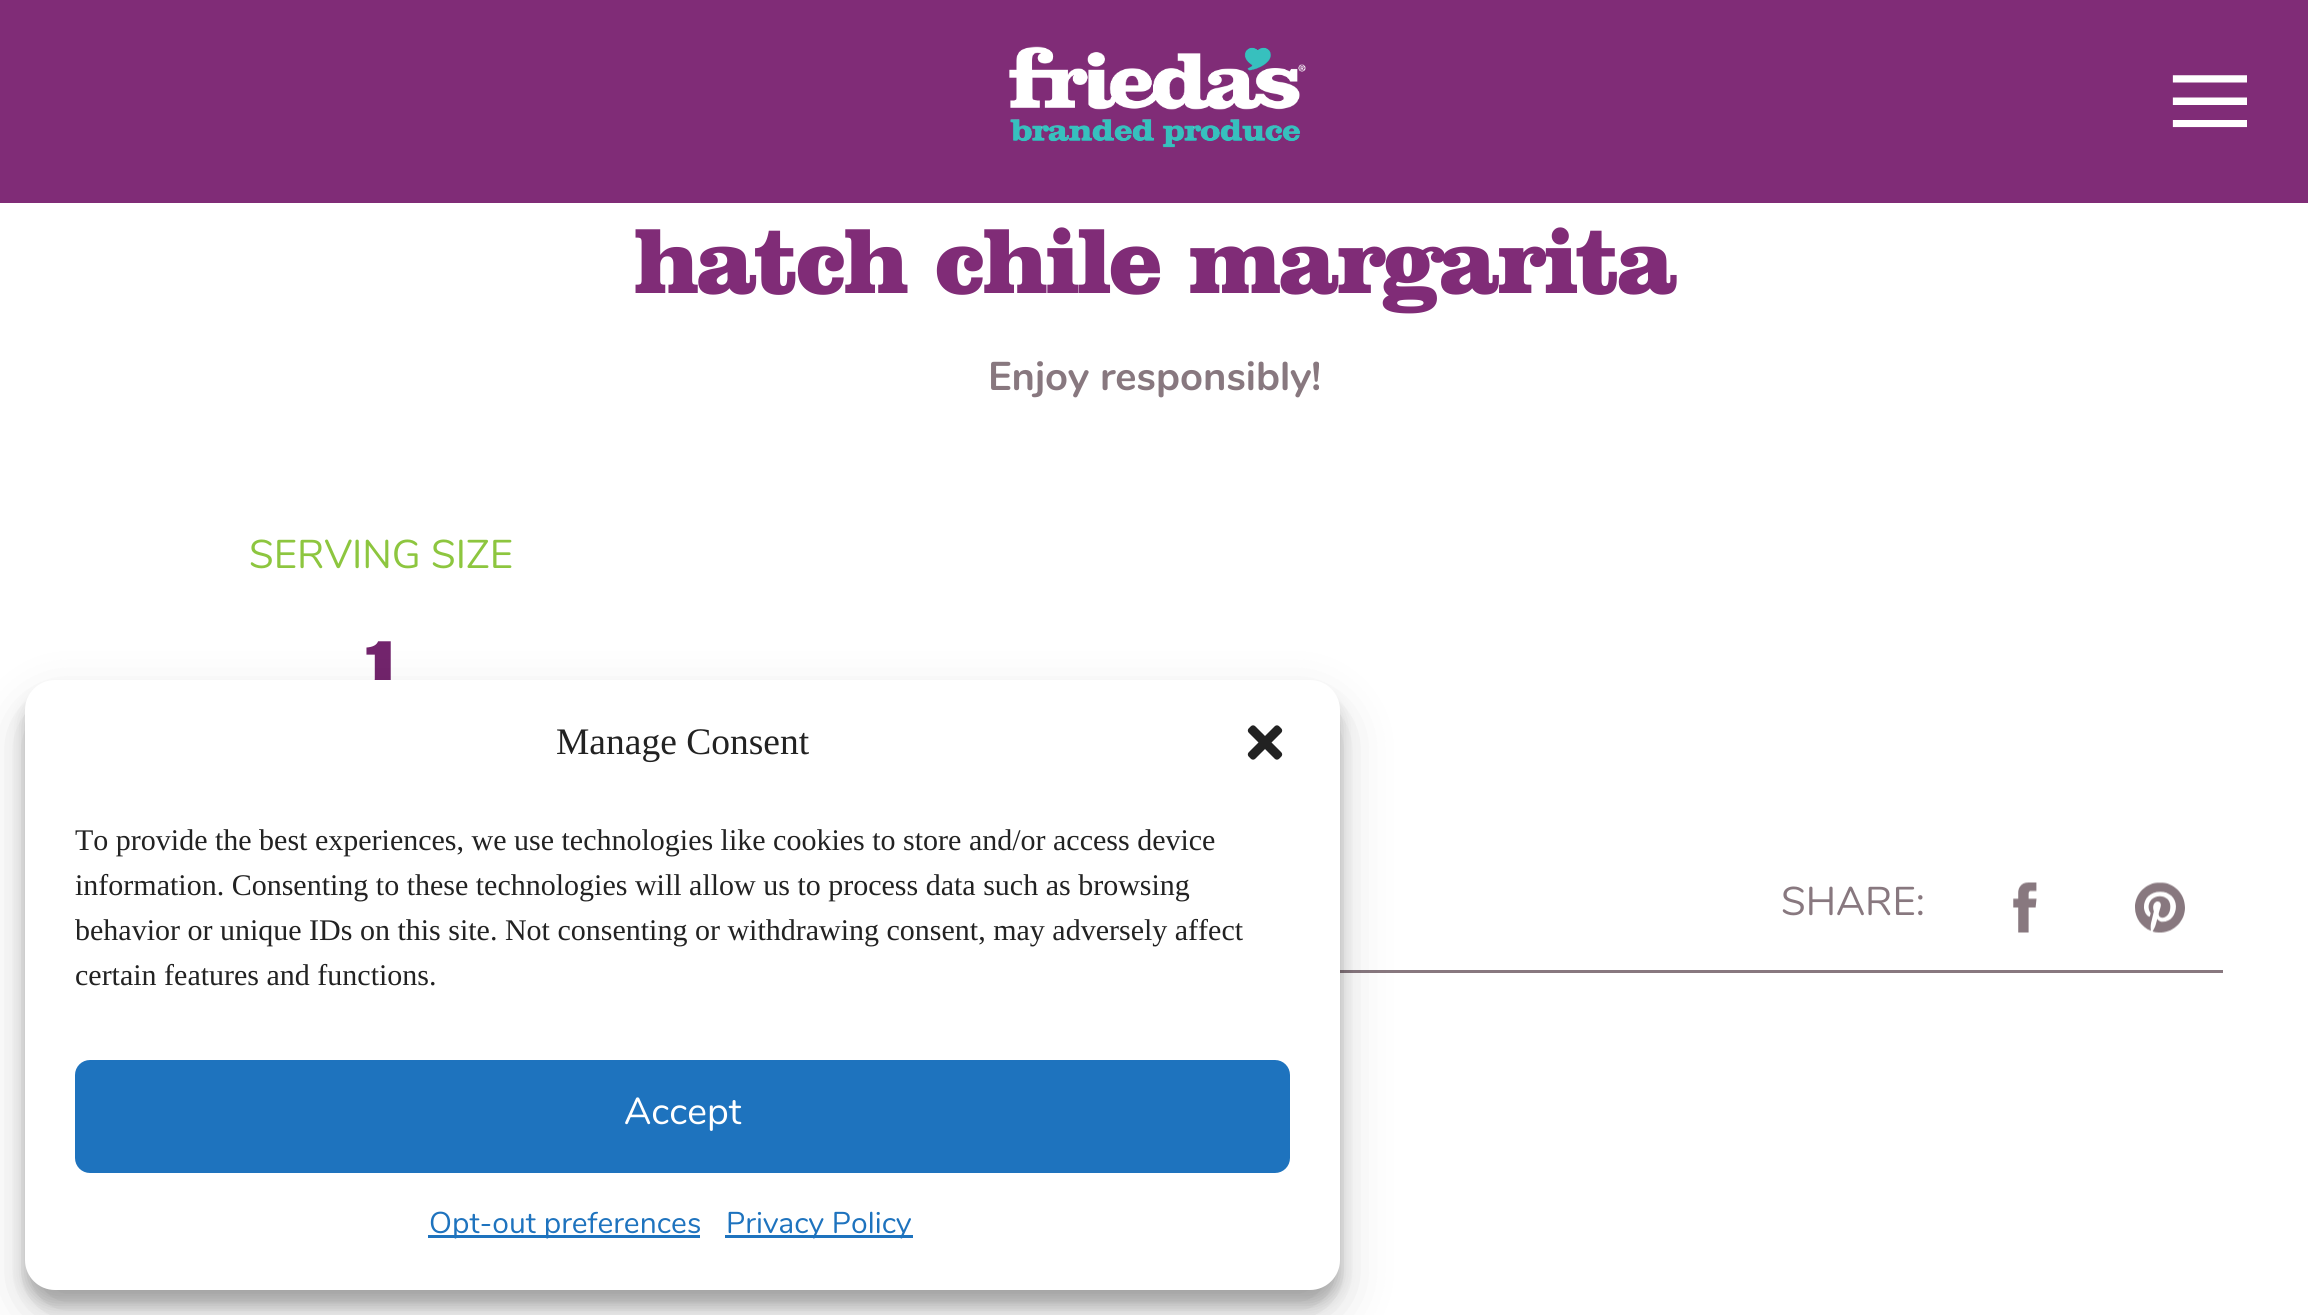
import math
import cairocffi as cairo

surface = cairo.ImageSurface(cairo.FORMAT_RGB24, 2308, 1315)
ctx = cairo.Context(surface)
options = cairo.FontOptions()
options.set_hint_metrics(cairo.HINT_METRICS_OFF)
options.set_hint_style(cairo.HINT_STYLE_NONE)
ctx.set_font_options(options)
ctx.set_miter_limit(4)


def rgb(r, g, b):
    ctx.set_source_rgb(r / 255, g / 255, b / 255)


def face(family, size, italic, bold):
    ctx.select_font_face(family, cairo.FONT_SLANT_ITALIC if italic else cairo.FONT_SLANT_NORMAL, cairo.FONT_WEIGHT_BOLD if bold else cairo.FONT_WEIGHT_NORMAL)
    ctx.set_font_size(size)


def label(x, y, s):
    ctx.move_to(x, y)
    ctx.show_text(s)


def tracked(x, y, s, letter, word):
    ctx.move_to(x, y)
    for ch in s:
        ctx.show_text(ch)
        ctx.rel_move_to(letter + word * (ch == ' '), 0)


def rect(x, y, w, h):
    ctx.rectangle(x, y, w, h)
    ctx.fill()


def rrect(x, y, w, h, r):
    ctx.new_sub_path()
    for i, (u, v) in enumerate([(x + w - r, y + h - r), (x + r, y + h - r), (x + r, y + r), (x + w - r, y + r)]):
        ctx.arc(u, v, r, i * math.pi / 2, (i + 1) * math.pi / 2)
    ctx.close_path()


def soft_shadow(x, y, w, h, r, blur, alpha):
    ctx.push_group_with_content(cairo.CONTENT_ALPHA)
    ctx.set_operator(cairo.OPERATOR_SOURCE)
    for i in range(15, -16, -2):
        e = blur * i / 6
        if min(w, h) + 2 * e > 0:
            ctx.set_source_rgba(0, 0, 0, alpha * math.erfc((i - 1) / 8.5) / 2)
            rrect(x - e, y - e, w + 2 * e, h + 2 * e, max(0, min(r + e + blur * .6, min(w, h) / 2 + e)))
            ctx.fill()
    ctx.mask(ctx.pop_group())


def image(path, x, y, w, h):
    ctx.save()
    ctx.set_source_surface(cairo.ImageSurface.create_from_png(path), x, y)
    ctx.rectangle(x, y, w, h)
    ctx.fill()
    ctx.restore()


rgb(255, 255, 255)
ctx.paint()
rgb(128, 44, 119)
rect(0, 0, 2308, 203)
image('image0.png', 1009, 46, 297, 102)
image('image1.png', 2172, 75, 75, 53)
face('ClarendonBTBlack', 95, 0, 0)
tracked(634, 293, 'hatch chile margarita', -2.5, 0)
face('Nunito', 40, 0, 1)
rgb(136, 120, 127)
label(988, 390, 'Enjoy responsibly!')
face('Nunito', 40, 0, 0)
rgb(141, 198, 63)
label(249, 568, 'SERVING SIZE')
face('ClarendonBTBlack', 80, 0, 0)
rgb(114, 36, 108)
tracked(356, 690, '1', -2.5, 0)
rgb(136, 120, 127)
rect(1340, 970, 883, 3)
face('Nunito', 40, 0, 0)
label(1781, 915, 'SHARE:')
image('image2.png', 2013, 882, 24, 51)
image('image3.png', 2135, 882, 50, 51)
rgb(0, 0, 0)
soft_shadow(25, 695, 1315, 610, 30, 7.5, 0.23)
soft_shadow(25, 705, 1315, 610, 30, 25, 0.19)
rgb(255, 255, 255)
rrect(25, 680, 1315, 610, 30)
ctx.fill()
face('Liberation Serif', 37.5, 0, 0)
rgb(34, 34, 34)
label(556, 754, 'Manage Consent')
image('image4.png', 1247, 725, 36, 35)
face('Liberation Serif', 30, 0, 0)
label(75, 850, 'To provide the best experiences, we use technologies like cookies to store and/or access device')
label(75, 895, 'information. Consenting to these technologies will allow us to process data such as browsing')
label(75, 940, 'behavior or unique IDs on this site. Not consenting or withdrawing consent, may adversely affect')
label(75, 985, 'certain features and functions.')
rgb(30, 115, 190)
rrect(76.5, 1061.5, 1212, 110, 13.5)
ctx.fill_preserve()
ctx.set_line_width(3)
ctx.stroke()
face('Nunito', 37.5, 0, 0)
rgb(255, 255, 255)
label(624, 1124, 'Accept')
rgb(30, 115, 190)
rect(428, 1235, 272, 3)
face('Nunito', 30, 0, 0)
label(429, 1233, 'Opt-out preferences')
rect(725, 1235, 188, 3)
label(726, 1233, 'Privacy Policy')
surface.write_to_png('render.png')
